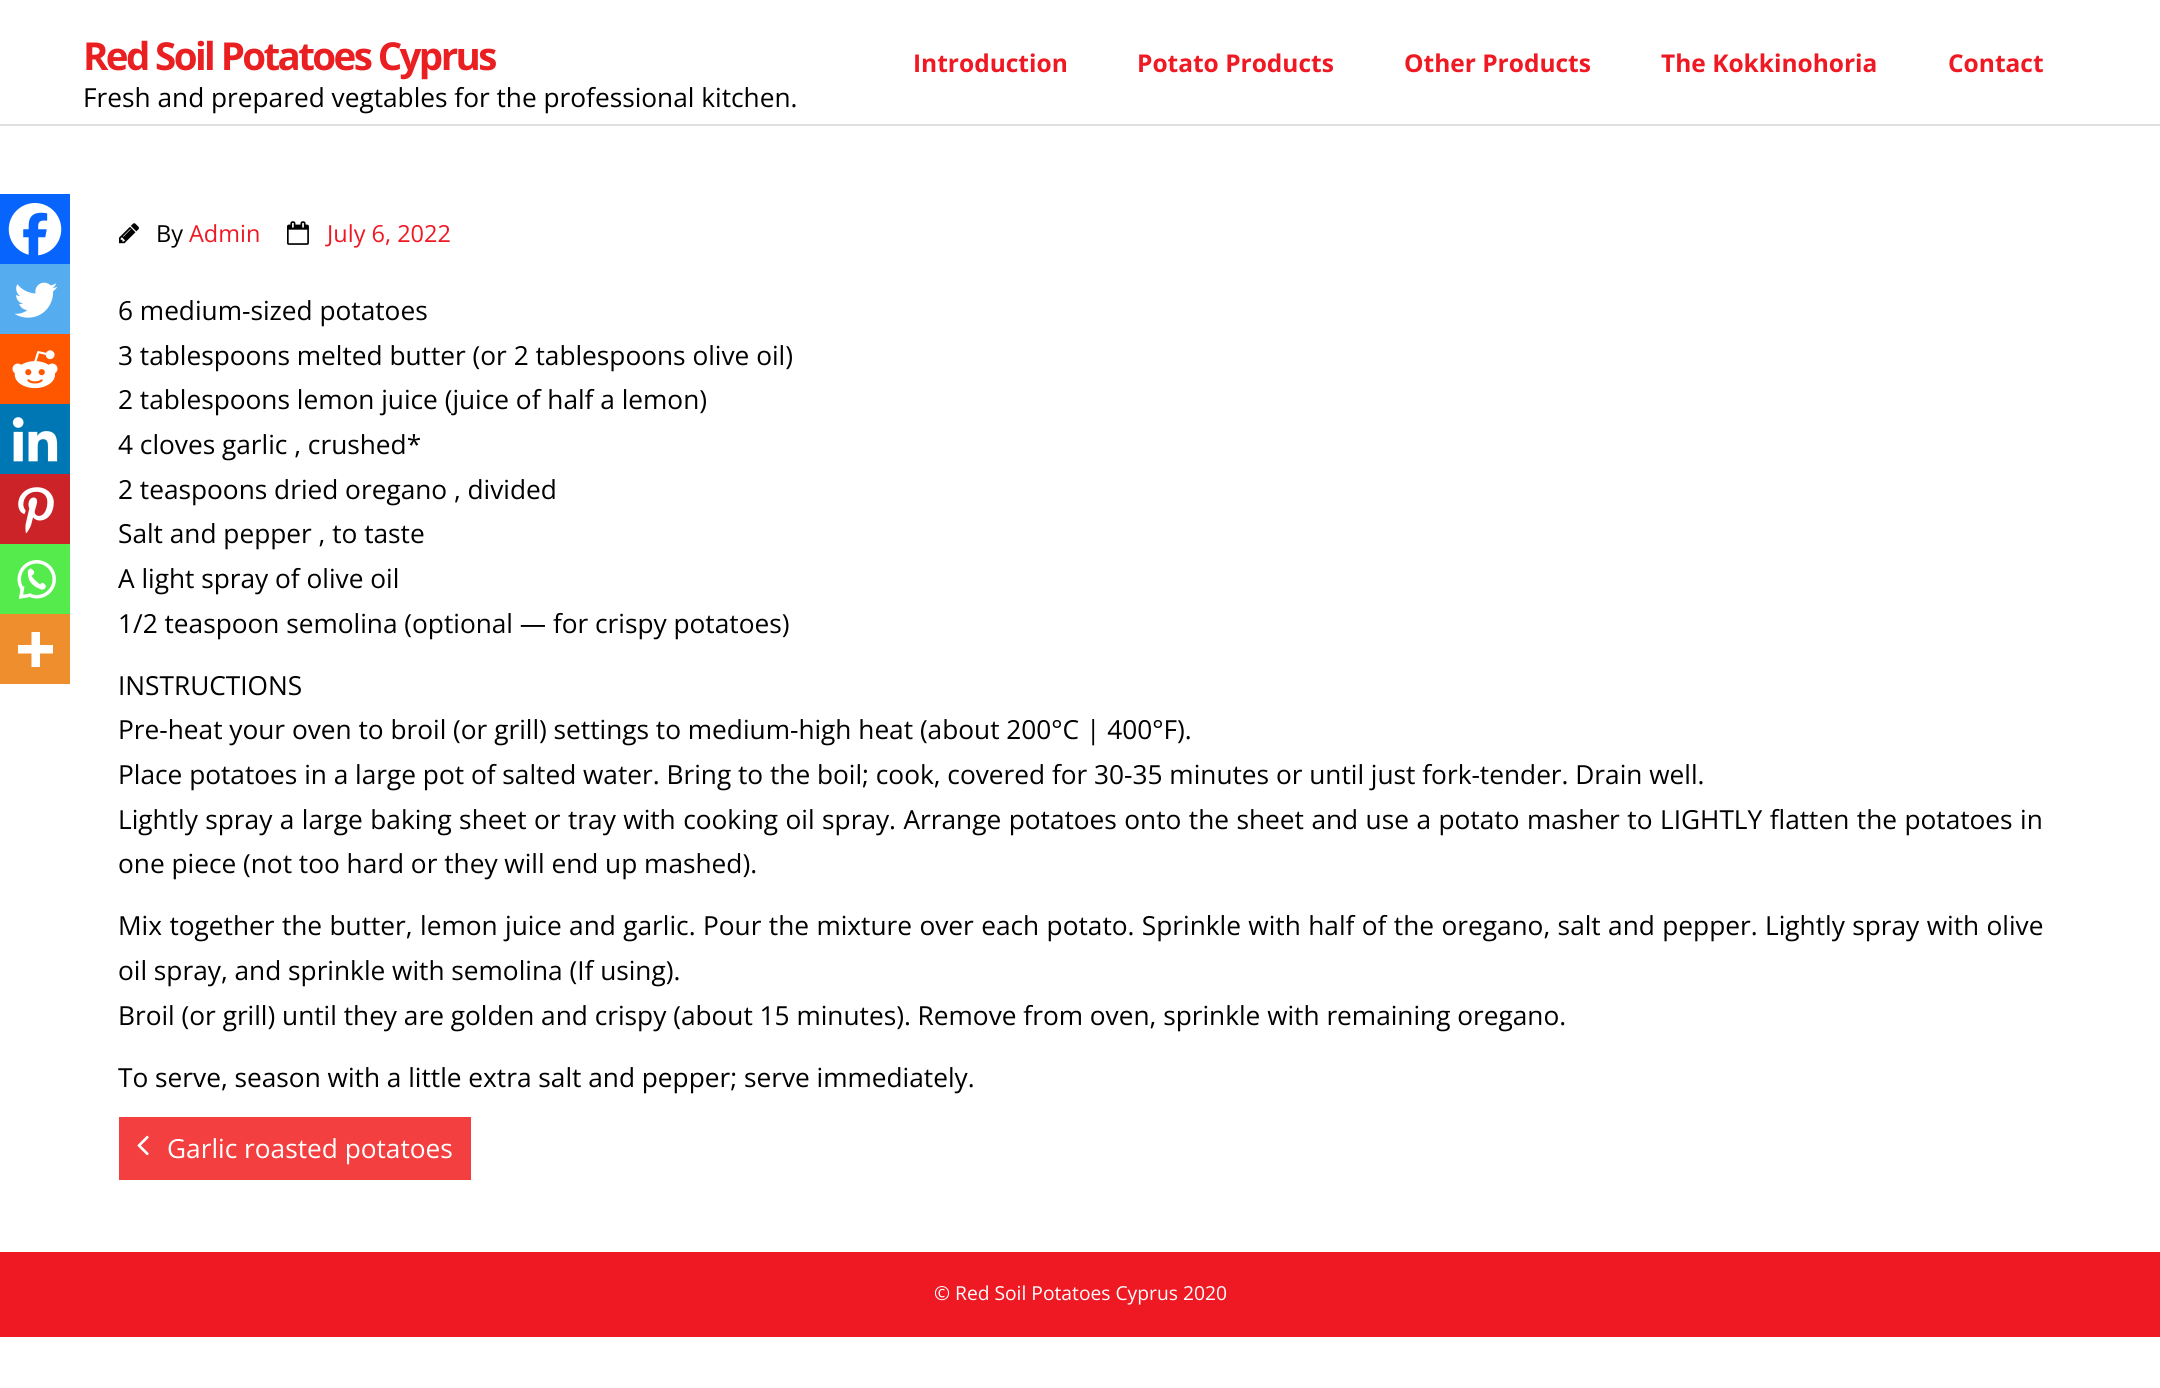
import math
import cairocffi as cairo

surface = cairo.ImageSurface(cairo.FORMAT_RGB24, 2160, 1388)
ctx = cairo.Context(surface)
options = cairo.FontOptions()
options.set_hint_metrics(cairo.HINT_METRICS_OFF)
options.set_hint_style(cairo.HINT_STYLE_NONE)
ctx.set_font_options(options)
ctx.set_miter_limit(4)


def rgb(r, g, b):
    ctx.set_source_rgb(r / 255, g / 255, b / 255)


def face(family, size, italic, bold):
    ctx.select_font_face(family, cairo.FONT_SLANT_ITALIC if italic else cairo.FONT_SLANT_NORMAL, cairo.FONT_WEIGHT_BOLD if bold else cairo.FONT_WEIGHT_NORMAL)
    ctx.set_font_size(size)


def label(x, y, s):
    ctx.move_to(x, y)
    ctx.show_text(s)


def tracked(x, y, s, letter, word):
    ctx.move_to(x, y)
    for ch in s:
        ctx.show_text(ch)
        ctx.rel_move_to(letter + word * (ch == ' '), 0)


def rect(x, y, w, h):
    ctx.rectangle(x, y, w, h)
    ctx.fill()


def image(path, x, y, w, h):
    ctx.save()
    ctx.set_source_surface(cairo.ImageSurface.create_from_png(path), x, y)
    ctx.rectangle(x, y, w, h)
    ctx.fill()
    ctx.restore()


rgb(255, 255, 255)
ctx.paint()
rgb(224, 224, 224)
rect(0, 124, 2160, 2)
face('Open Sans', 38.5, 0, 1)
rgb(234, 31, 34)
tracked(83, 70, 'Red Soil Potatoes Cyprus', -2.6, 0)
face('Open Sans', 26.25, 0, 0)
rgb(0, 0, 0)
label(83, 107, 'Fresh and prepared vegtables for the professional kitchen.')
face('Open Sans', 24.5, 0, 1)
rgb(239, 25, 36)
label(913, 72, 'Introduction')
label(1137, 72, 'Potato Products')
label(1404, 72, 'Other Products')
label(1661, 72, 'The Kokkinohoria')
label(1948, 72, 'Contact')
image('image0.png', 119, 223, 20, 21)
face('Open Sans', 23.5, 0, 0)
rgb(0, 0, 0)
label(156, 242, 'By')
rgb(239, 25, 36)
label(189, 242, 'Admin')
image('image1.png', 287, 221, 22, 24)
label(327, 242, 'July 6, 2022')
rgb(7, 101, 254)
rect(0, 194, 70, 70)
image('image2.png', 8, 203, 54, 53)
rgb(85, 172, 238)
rect(0, 264, 70, 70)
image('image3.png', 14, 282, 44, 36)
rgb(255, 87, 0)
rect(0, 334, 70, 70)
image('image4.png', 12, 350, 46, 39)
rgb(0, 119, 181)
rect(0, 404, 70, 70)
image('image5.png', 12, 417, 46, 45)
rgb(204, 35, 41)
rect(0, 474, 70, 70)
image('image6.png', 18, 487, 36, 47)
rgb(85, 235, 76)
rect(0, 544, 70, 70)
image('image7.png', 17, 560, 39, 39)
rgb(238, 142, 45)
rect(0, 614, 70, 70)
rgb(255, 255, 255)
ctx.set_fill_rule(cairo.FILL_RULE_EVEN_ODD)
ctx.new_path()
ctx.move_to(40, 645)
ctx.line_to(40, 632)
ctx.line_to(31.5, 632)
ctx.line_to(31.5, 645)
ctx.line_to(18, 645)
ctx.line_to(18, 653.5)
ctx.line_to(31.5, 653.5)
ctx.line_to(31.5, 667)
ctx.line_to(40, 667)
ctx.line_to(40, 653.5)
ctx.line_to(53, 653.5)
ctx.line_to(53, 645)
ctx.close_path()
ctx.fill()
face('Open Sans', 26.25, 0, 0)
rgb(0, 0, 0)
label(118, 320, '6 medium-sized potatoes')
label(118, 365, '3 tablespoons melted butter (or 2 tablespoons olive oil)')
label(118, 409, '2 tablespoons lemon juice (juice of half a lemon)')
label(118, 454, '4 cloves garlic , crushed*')
label(118, 499, '2 teaspoons dried oregano , divided')
label(118, 543, 'Salt and pepper , to taste')
label(118, 588, 'A light spray of olive oil')
label(118, 633, '1/2 teaspoon semolina (optional — for crispy potatoes)')
label(118, 695, 'INSTRUCTIONS')
label(118, 739, 'Pre-heat your oven to broil (or grill) settings to medium-high heat (about 200°C | 400°F).')
label(118, 784, 'Place potatoes in a large pot of salted water. Bring to the boil; cook, covered for 30-35 minutes or until just fork-tender. Drain well.')
tracked(118, 829, 'Lightly spray a large baking sheet or tray with cooking oil spray. Arrange potatoes onto the sheet and use a potato masher to LIGHTLY flatten the potatoes in', 0, 0.65)
label(118, 873, 'one piece (not too hard or they will end up mashed).')
tracked(118, 935, 'Mix together the butter, lemon juice and garlic. Pour the mixture over each potato. Sprinkle with half of the oregano, salt and pepper. Lightly spray with olive', 0, 0.6)
label(118, 980, 'oil spray, and sprinkle with semolina (If using).')
label(118, 1025, 'Broil (or grill) until they are golden and crispy (about 15 minutes). Remove from oven, sprinkle with remaining oregano.')
label(118, 1087, 'To serve, season with a little extra salt and pepper; serve immediately.')
rgb(243, 63, 63)
rect(119, 1117, 352, 63)
image('image8.png', 137, 1135, 12, 21)
rgb(255, 255, 255)
label(167, 1158, 'Garlic roasted potatoes')
rgb(239, 25, 36)
rect(0, 1252, 2160, 85)
face('Open Sans', 19.25, 0, 0)
rgb(255, 255, 255)
label(934, 1300, '© Red Soil Potatoes Cyprus 2020')
surface.write_to_png('render.png')
